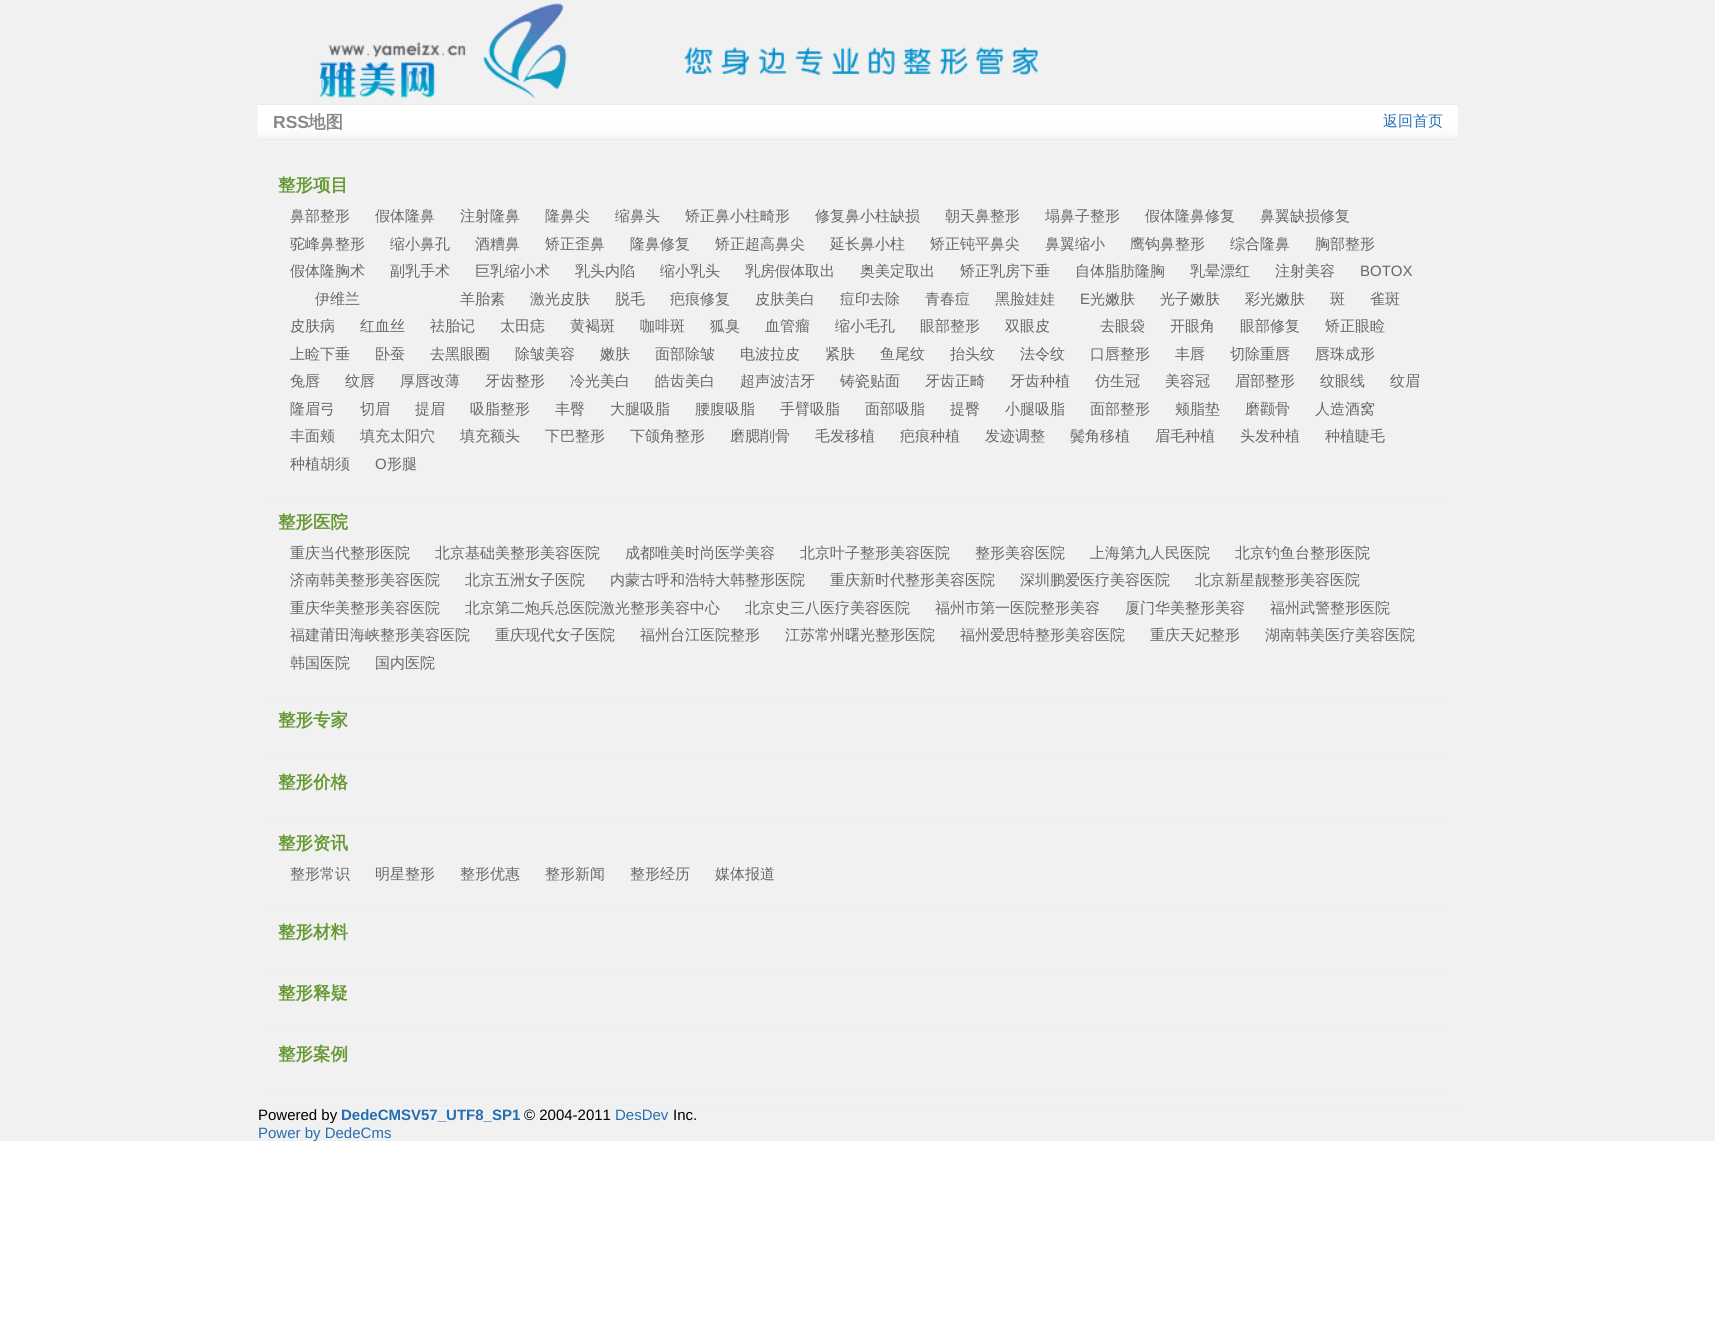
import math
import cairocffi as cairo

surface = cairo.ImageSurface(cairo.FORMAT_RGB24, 1715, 1327)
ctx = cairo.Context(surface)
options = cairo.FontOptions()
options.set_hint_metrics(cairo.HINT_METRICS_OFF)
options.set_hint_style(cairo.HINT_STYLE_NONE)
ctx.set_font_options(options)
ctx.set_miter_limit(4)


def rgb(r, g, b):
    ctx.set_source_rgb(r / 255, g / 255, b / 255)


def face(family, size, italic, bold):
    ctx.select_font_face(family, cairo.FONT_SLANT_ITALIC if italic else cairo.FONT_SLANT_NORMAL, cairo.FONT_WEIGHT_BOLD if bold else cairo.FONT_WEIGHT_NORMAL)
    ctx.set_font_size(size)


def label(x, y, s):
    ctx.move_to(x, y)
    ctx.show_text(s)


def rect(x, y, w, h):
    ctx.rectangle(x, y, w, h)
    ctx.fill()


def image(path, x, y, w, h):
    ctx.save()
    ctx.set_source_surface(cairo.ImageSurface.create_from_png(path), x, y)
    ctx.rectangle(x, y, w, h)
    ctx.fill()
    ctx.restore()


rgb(255, 255, 255)
ctx.paint()
rgb(241, 241, 241)
rect(0, 0, 1715, 1141)
image('image0.png', 319, 3, 720, 96)
rgb(243, 251, 234)
rect(1457, 105, 1, 34)
image('image1.png', 257, 105, 1201, 35)
rgb(234, 234, 234)
rect(258, 104, 1200, 1)
rect(258, 139, 1200, 1)
face('Liberation Sans', 17.5, 0, 1)
rgb(136, 136, 136)
label(273, 128, 'RSS')
face('WenQuanYi Zen Hei', 17.5, 0, 1)
label(308, 128, '地图')
face('WenQuanYi Zen Hei Medium', 15, 0, 0)
rgb(37, 110, 177)
label(1383, 126, '返回首页')
rgb(238, 238, 238)
rect(258, 1105, 1200, 1)
rect(268, 498, 1180, 1)
face('WenQuanYi Zen Hei', 17.5, 0, 1)
rgb(102, 153, 51)
label(278, 191, '整形项目')
face('WenQuanYi Zen Hei Medium', 15, 0, 0)
rgb(102, 102, 102)
label(290, 221, '鼻部整形')
label(375, 221, '假体隆鼻')
label(460, 221, '注射隆鼻')
label(545, 221, '隆鼻尖')
label(615, 221, '缩鼻头')
label(685, 221, '矫正鼻小柱畸形')
label(815, 221, '修复鼻小柱缺损')
label(945, 221, '朝天鼻整形')
label(1045, 221, '塌鼻子整形')
label(1145, 221, '假体隆鼻修复')
label(1260, 221, '鼻翼缺损修复')
label(290, 249, '驼峰鼻整形')
label(390, 249, '缩小鼻孔')
label(475, 249, '酒糟鼻')
label(545, 249, '矫正歪鼻')
label(630, 249, '隆鼻修复')
label(715, 249, '矫正超高鼻尖')
label(830, 249, '延长鼻小柱')
label(930, 249, '矫正钝平鼻尖')
label(1045, 249, '鼻翼缩小')
label(1130, 249, '鹰钩鼻整形')
label(1230, 249, '综合隆鼻')
label(1315, 249, '胸部整形')
label(290, 276, '假体隆胸术')
label(390, 276, '副乳手术')
label(475, 276, '巨乳缩小术')
label(575, 276, '乳头内陷')
label(660, 276, '缩小乳头')
label(745, 276, '乳房假体取出')
label(860, 276, '奥美定取出')
label(960, 276, '矫正乳房下垂')
label(1075, 276, '自体脂肪隆胸')
label(1190, 276, '乳晕漂红')
label(1275, 276, '注射美容')
face('Liberation Sans', 15, 0, 0)
label(1360, 276, 'BOTOX')
face('WenQuanYi Zen Hei Medium', 15, 0, 0)
label(315, 304, '伊维兰')
label(460, 304, '羊胎素')
label(530, 304, '激光皮肤')
label(615, 304, '脱毛')
label(670, 304, '疤痕修复')
label(755, 304, '皮肤美白')
label(840, 304, '痘印去除')
label(925, 304, '青春痘')
label(995, 304, '黑脸娃娃')
face('Liberation Sans', 15, 0, 0)
label(1080, 304, 'E')
face('WenQuanYi Zen Hei Medium', 15, 0, 0)
label(1090, 304, '光嫩肤')
label(1160, 304, '光子嫩肤')
label(1245, 304, '彩光嫩肤')
label(1330, 304, '斑')
label(1370, 304, '雀斑')
label(290, 331, '皮肤病')
label(360, 331, '红血丝')
label(430, 331, '祛胎记')
label(500, 331, '太田痣')
label(570, 331, '黄褐斑')
label(640, 331, '咖啡斑')
label(710, 331, '狐臭')
label(765, 331, '血管瘤')
label(835, 331, '缩小毛孔')
label(920, 331, '眼部整形')
label(1005, 331, '双眼皮')
label(1100, 331, '去眼袋')
label(1170, 331, '开眼角')
label(1240, 331, '眼部修复')
label(1325, 331, '矫正眼睑')
label(290, 359, '上睑下垂')
label(375, 359, '卧蚕')
label(430, 359, '去黑眼圈')
label(515, 359, '除皱美容')
label(600, 359, '嫩肤')
label(655, 359, '面部除皱')
label(740, 359, '电波拉皮')
label(825, 359, '紧肤')
label(880, 359, '鱼尾纹')
label(950, 359, '抬头纹')
label(1020, 359, '法令纹')
label(1090, 359, '口唇整形')
label(1175, 359, '丰唇')
label(1230, 359, '切除重唇')
label(1315, 359, '唇珠成形')
label(290, 386, '兔唇')
label(345, 386, '纹唇')
label(400, 386, '厚唇改薄')
label(485, 386, '牙齿整形')
label(570, 386, '冷光美白')
label(655, 386, '皓齿美白')
label(740, 386, '超声波洁牙')
label(840, 386, '铸瓷贴面')
label(925, 386, '牙齿正畸')
label(1010, 386, '牙齿种植')
label(1095, 386, '仿生冠')
label(1165, 386, '美容冠')
label(1235, 386, '眉部整形')
label(1320, 386, '纹眼线')
label(1390, 386, '纹眉')
label(290, 414, '隆眉弓')
label(360, 414, '切眉')
label(415, 414, '提眉')
label(470, 414, '吸脂整形')
label(555, 414, '丰臀')
label(610, 414, '大腿吸脂')
label(695, 414, '腰腹吸脂')
label(780, 414, '手臂吸脂')
label(865, 414, '面部吸脂')
label(950, 414, '提臀')
label(1005, 414, '小腿吸脂')
label(1090, 414, '面部整形')
label(1175, 414, '颊脂垫')
label(1245, 414, '磨颧骨')
label(1315, 414, '人造酒窝')
label(290, 441, '丰面颊')
label(360, 441, '填充太阳穴')
label(460, 441, '填充额头')
label(545, 441, '下巴整形')
label(630, 441, '下颌角整形')
label(730, 441, '磨腮削骨')
label(815, 441, '毛发移植')
label(900, 441, '疤痕种植')
label(985, 441, '发迹调整')
label(1070, 441, '鬓角移植')
label(1155, 441, '眉毛种植')
label(1240, 441, '头发种植')
label(1325, 441, '种植睫毛')
label(290, 469, '种植胡须')
face('Liberation Sans', 15, 0, 0)
label(375, 469, 'O')
face('WenQuanYi Zen Hei Medium', 15, 0, 0)
label(387, 469, '形腿')
rgb(238, 238, 238)
rect(268, 696, 1180, 1)
face('WenQuanYi Zen Hei', 17.5, 0, 1)
rgb(102, 153, 51)
label(278, 528, '整形医院')
face('WenQuanYi Zen Hei Medium', 15, 0, 0)
rgb(102, 102, 102)
label(290, 558, '重庆当代整形医院')
label(435, 558, '北京基础美整形美容医院')
label(625, 558, '成都唯美时尚医学美容')
label(800, 558, '北京叶子整形美容医院')
label(975, 558, '整形美容医院')
label(1090, 558, '上海第九人民医院')
label(1235, 558, '北京钓鱼台整形医院')
label(290, 585, '济南韩美整形美容医院')
label(465, 585, '北京五洲女子医院')
label(610, 585, '内蒙古呼和浩特大韩整形医院')
label(830, 585, '重庆新时代整形美容医院')
label(1020, 585, '深圳鹏爱医疗美容医院')
label(1195, 585, '北京新星靓整形美容医院')
label(290, 613, '重庆华美整形美容医院')
label(465, 613, '北京第二炮兵总医院激光整形美容中心')
label(745, 613, '北京史三八医疗美容医院')
label(935, 613, '福州市第一医院整形美容')
label(1125, 613, '厦门华美整形美容')
label(1270, 613, '福州武警整形医院')
label(290, 640, '福建莆田海峡整形美容医院')
label(495, 640, '重庆现代女子医院')
label(640, 640, '福州台江医院整形')
label(785, 640, '江苏常州曙光整形医院')
label(960, 640, '福州爱思特整形美容医院')
label(1150, 640, '重庆天妃整形')
label(1265, 640, '湖南韩美医疗美容医院')
label(290, 668, '韩国医院')
label(375, 668, '国内医院')
rgb(238, 238, 238)
rect(268, 758, 1180, 1)
face('WenQuanYi Zen Hei', 17.5, 0, 1)
rgb(102, 153, 51)
label(278, 726, '整形专家')
rgb(238, 238, 238)
rect(268, 819, 1180, 1)
rgb(102, 153, 51)
label(278, 788, '整形价格')
rgb(238, 238, 238)
rect(268, 908, 1180, 1)
rgb(102, 153, 51)
label(278, 849, '整形资讯')
face('WenQuanYi Zen Hei Medium', 15, 0, 0)
rgb(102, 102, 102)
label(290, 879, '整形常识')
label(375, 879, '明星整形')
label(460, 879, '整形优惠')
label(545, 879, '整形新闻')
label(630, 879, '整形经历')
label(715, 879, '媒体报道')
rgb(238, 238, 238)
rect(268, 969, 1180, 1)
face('WenQuanYi Zen Hei', 17.5, 0, 1)
rgb(102, 153, 51)
label(278, 938, '整形材料')
rgb(238, 238, 238)
rect(268, 1030, 1180, 1)
rgb(102, 153, 51)
label(278, 999, '整形释疑')
rgb(238, 238, 238)
rect(268, 1091, 1180, 1)
rgb(102, 153, 51)
label(278, 1060, '整形案例')
face('Liberation Sans', 15, 0, 0)
rgb(0, 0, 0)
label(258, 1120, 'Powered by')
face('Liberation Sans', 15, 0, 1)
rgb(37, 110, 177)
label(341, 1120, 'DedeCMSV57_UTF8_SP1')
face('Liberation Sans', 15, 0, 0)
rgb(0, 0, 0)
label(524, 1120, '© 2004-2011')
rgb(37, 110, 177)
label(615, 1120, 'DesDev')
rgb(0, 0, 0)
label(673, 1120, 'Inc.')
rgb(37, 110, 177)
label(258, 1138, 'Power by DedeCms')
surface.write_to_png('render.png')
